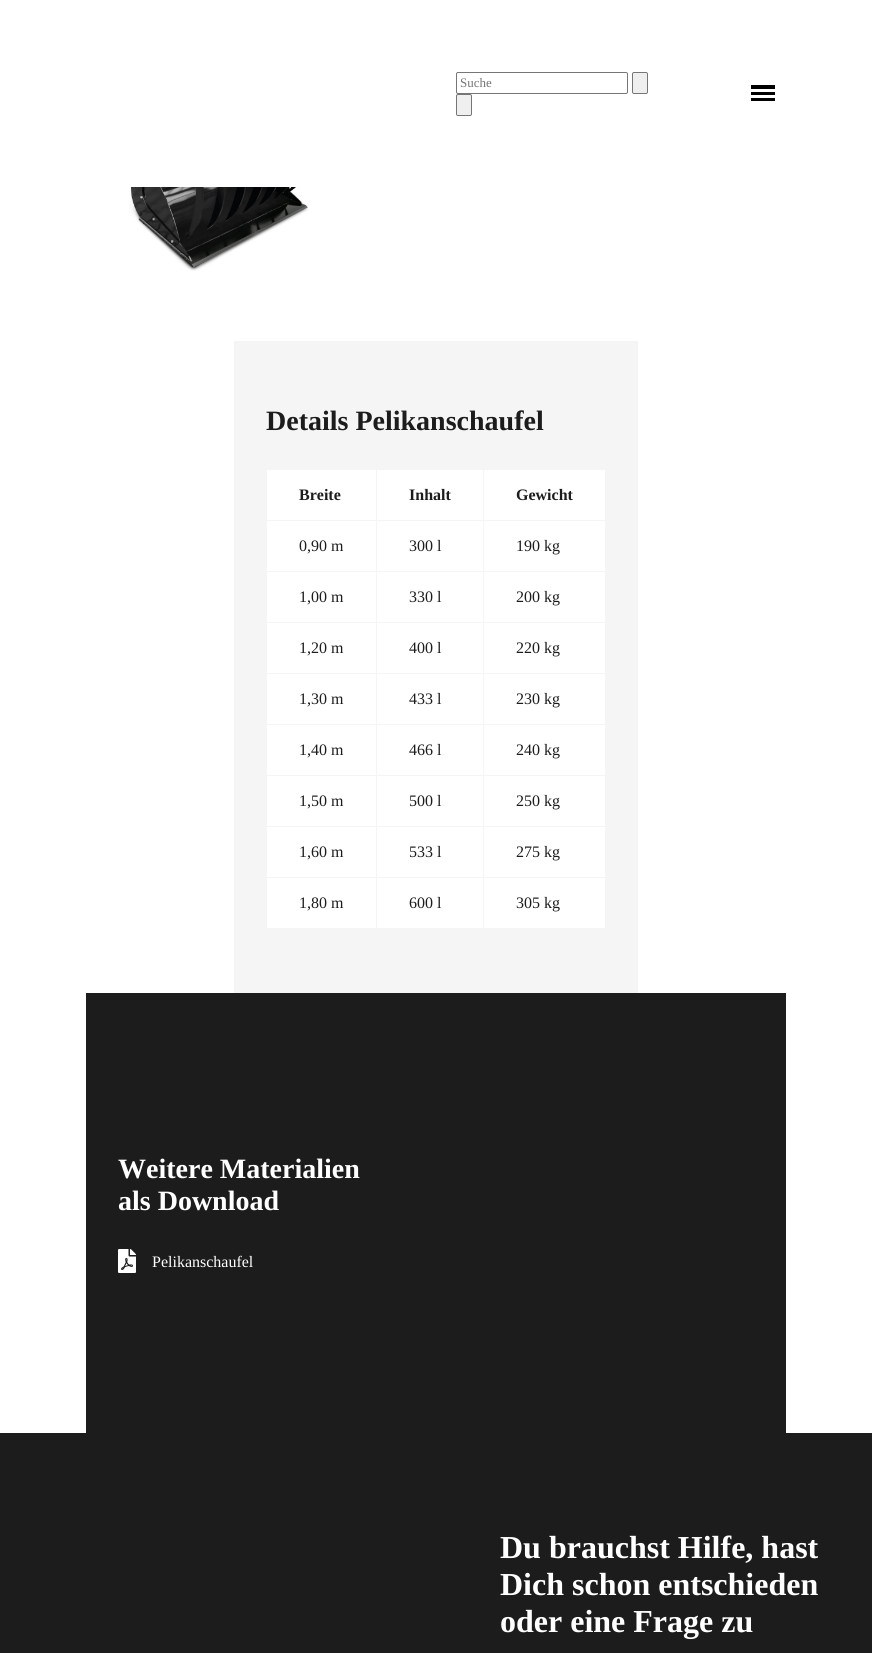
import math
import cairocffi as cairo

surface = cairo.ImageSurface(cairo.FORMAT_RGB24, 872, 1653)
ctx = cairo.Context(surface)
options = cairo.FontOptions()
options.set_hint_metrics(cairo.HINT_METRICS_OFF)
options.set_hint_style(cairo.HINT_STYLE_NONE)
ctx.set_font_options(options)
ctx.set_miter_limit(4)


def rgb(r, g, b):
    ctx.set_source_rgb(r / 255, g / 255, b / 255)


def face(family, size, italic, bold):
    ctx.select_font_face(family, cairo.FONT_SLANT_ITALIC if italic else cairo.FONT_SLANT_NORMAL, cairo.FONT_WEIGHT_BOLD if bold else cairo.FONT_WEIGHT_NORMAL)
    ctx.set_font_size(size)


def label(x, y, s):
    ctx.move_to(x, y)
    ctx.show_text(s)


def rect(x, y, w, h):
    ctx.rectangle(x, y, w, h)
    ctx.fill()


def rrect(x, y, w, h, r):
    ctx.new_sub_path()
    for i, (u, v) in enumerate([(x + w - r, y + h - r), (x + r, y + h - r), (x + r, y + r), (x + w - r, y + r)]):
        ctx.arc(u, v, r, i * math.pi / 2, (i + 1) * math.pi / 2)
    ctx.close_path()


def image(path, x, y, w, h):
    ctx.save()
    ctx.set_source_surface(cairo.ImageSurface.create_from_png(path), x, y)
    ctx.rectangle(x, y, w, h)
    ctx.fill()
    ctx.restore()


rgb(255, 255, 255)
ctx.paint()
rrect(456.5, 72.5, 171, 21, 1.5)
rgb(118, 118, 118)
ctx.set_line_width(1)
ctx.stroke()
face('Liberation Serif', 13, 0, 0)
rgb(117, 117, 117)
label(460, 87, 'Suche')
rgb(239, 239, 239)
rrect(632.5, 72.5, 15, 21, 1.5)
ctx.fill_preserve()
rgb(118, 118, 118)
ctx.stroke()
rgb(239, 239, 239)
rrect(456.5, 94.5, 15, 21, 1.5)
ctx.fill_preserve()
rgb(118, 118, 118)
ctx.stroke()
rgb(0, 0, 0)
rect(751, 85, 24, 4)
rect(751, 92, 24, 3)
rect(751, 98, 24, 3)
image('image0.png', 129, 187, 185, 84)
rgb(245, 245, 245)
rect(234, 341, 404, 652)
face('Liberation Serif', 28, 0, 1)
rgb(28, 28, 28)
label(266, 430, 'Details Pelikanschaufel')
rgb(255, 255, 255)
rect(267, 470, 338, 458)
face('Liberation Serif', 16, 0, 1)
rgb(28, 28, 28)
label(299, 500, 'Breite')
rgb(245, 245, 245)
rect(483, 520, 123, 1)
rect(483, 571, 123, 1)
rect(483, 622, 123, 1)
rect(483, 673, 123, 1)
rect(483, 724, 123, 1)
rect(483, 775, 123, 1)
rect(483, 826, 123, 1)
rect(483, 877, 123, 1)
rect(483, 877, 1, 52)
rect(376, 877, 108, 1)
rect(483, 826, 1, 52)
rect(376, 826, 108, 1)
rect(483, 775, 1, 52)
rect(376, 775, 108, 1)
rect(483, 724, 1, 52)
rect(376, 724, 108, 1)
rect(483, 673, 1, 52)
rect(376, 673, 108, 1)
rect(483, 622, 1, 52)
rect(376, 622, 108, 1)
rect(483, 571, 1, 52)
rect(376, 571, 108, 1)
rect(483, 520, 1, 52)
rect(376, 520, 108, 1)
rect(376, 877, 1, 52)
rect(266, 877, 111, 1)
rect(376, 826, 1, 52)
rect(266, 826, 111, 1)
rect(376, 775, 1, 52)
rect(266, 775, 111, 1)
rect(376, 724, 1, 52)
rect(266, 724, 111, 1)
rect(376, 673, 1, 52)
rect(266, 673, 111, 1)
rect(376, 622, 1, 52)
rect(266, 622, 111, 1)
rect(376, 571, 1, 52)
rect(266, 571, 111, 1)
rect(376, 520, 1, 52)
rect(266, 520, 111, 1)
rect(376, 469, 1, 52)
rgb(28, 28, 28)
label(409, 500, 'Inhalt')
rgb(245, 245, 245)
rect(483, 469, 1, 52)
rgb(28, 28, 28)
label(516, 500, 'Gewicht')
face('Liberation Serif', 16, 0, 0)
label(299, 551, '0,90 m')
label(409, 551, '300 l')
label(516, 551, '190 kg')
label(299, 602, '1,00 m')
label(409, 602, '330 l')
label(516, 602, '200 kg')
label(299, 653, '1,20 m')
label(409, 653, '400 l')
label(516, 653, '220 kg')
label(299, 704, '1,30 m')
label(409, 704, '433 l')
label(516, 704, '230 kg')
label(299, 755, '1,40 m')
label(409, 755, '466 l')
label(516, 755, '240 kg')
label(299, 806, '1,50 m')
label(409, 806, '500 l')
label(516, 806, '250 kg')
label(299, 857, '1,60 m')
label(409, 857, '533 l')
label(516, 857, '275 kg')
label(299, 908, '1,80 m')
label(409, 908, '600 l')
label(516, 908, '305 kg')
rect(86, 993, 700, 440)
face('Liberation Serif', 28, 0, 1)
rgb(255, 255, 255)
label(118, 1178, 'Weitere Materialien')
label(118, 1210, 'als Download')
image('image1.png', 118, 1249, 18, 24)
face('Liberation Serif', 16, 0, 0)
label(152, 1267, 'Pelikanschaufel')
rgb(28, 28, 28)
rect(0, 1433, 872, 220)
face('Liberation Serif', 32, 0, 1)
rgb(255, 255, 255)
label(500, 1558, 'Du brauchst Hilfe, hast')
label(500, 1595, 'Dich schon entschieden')
label(500, 1632, 'oder eine Frage zu')
surface.write_to_png('render.png')
